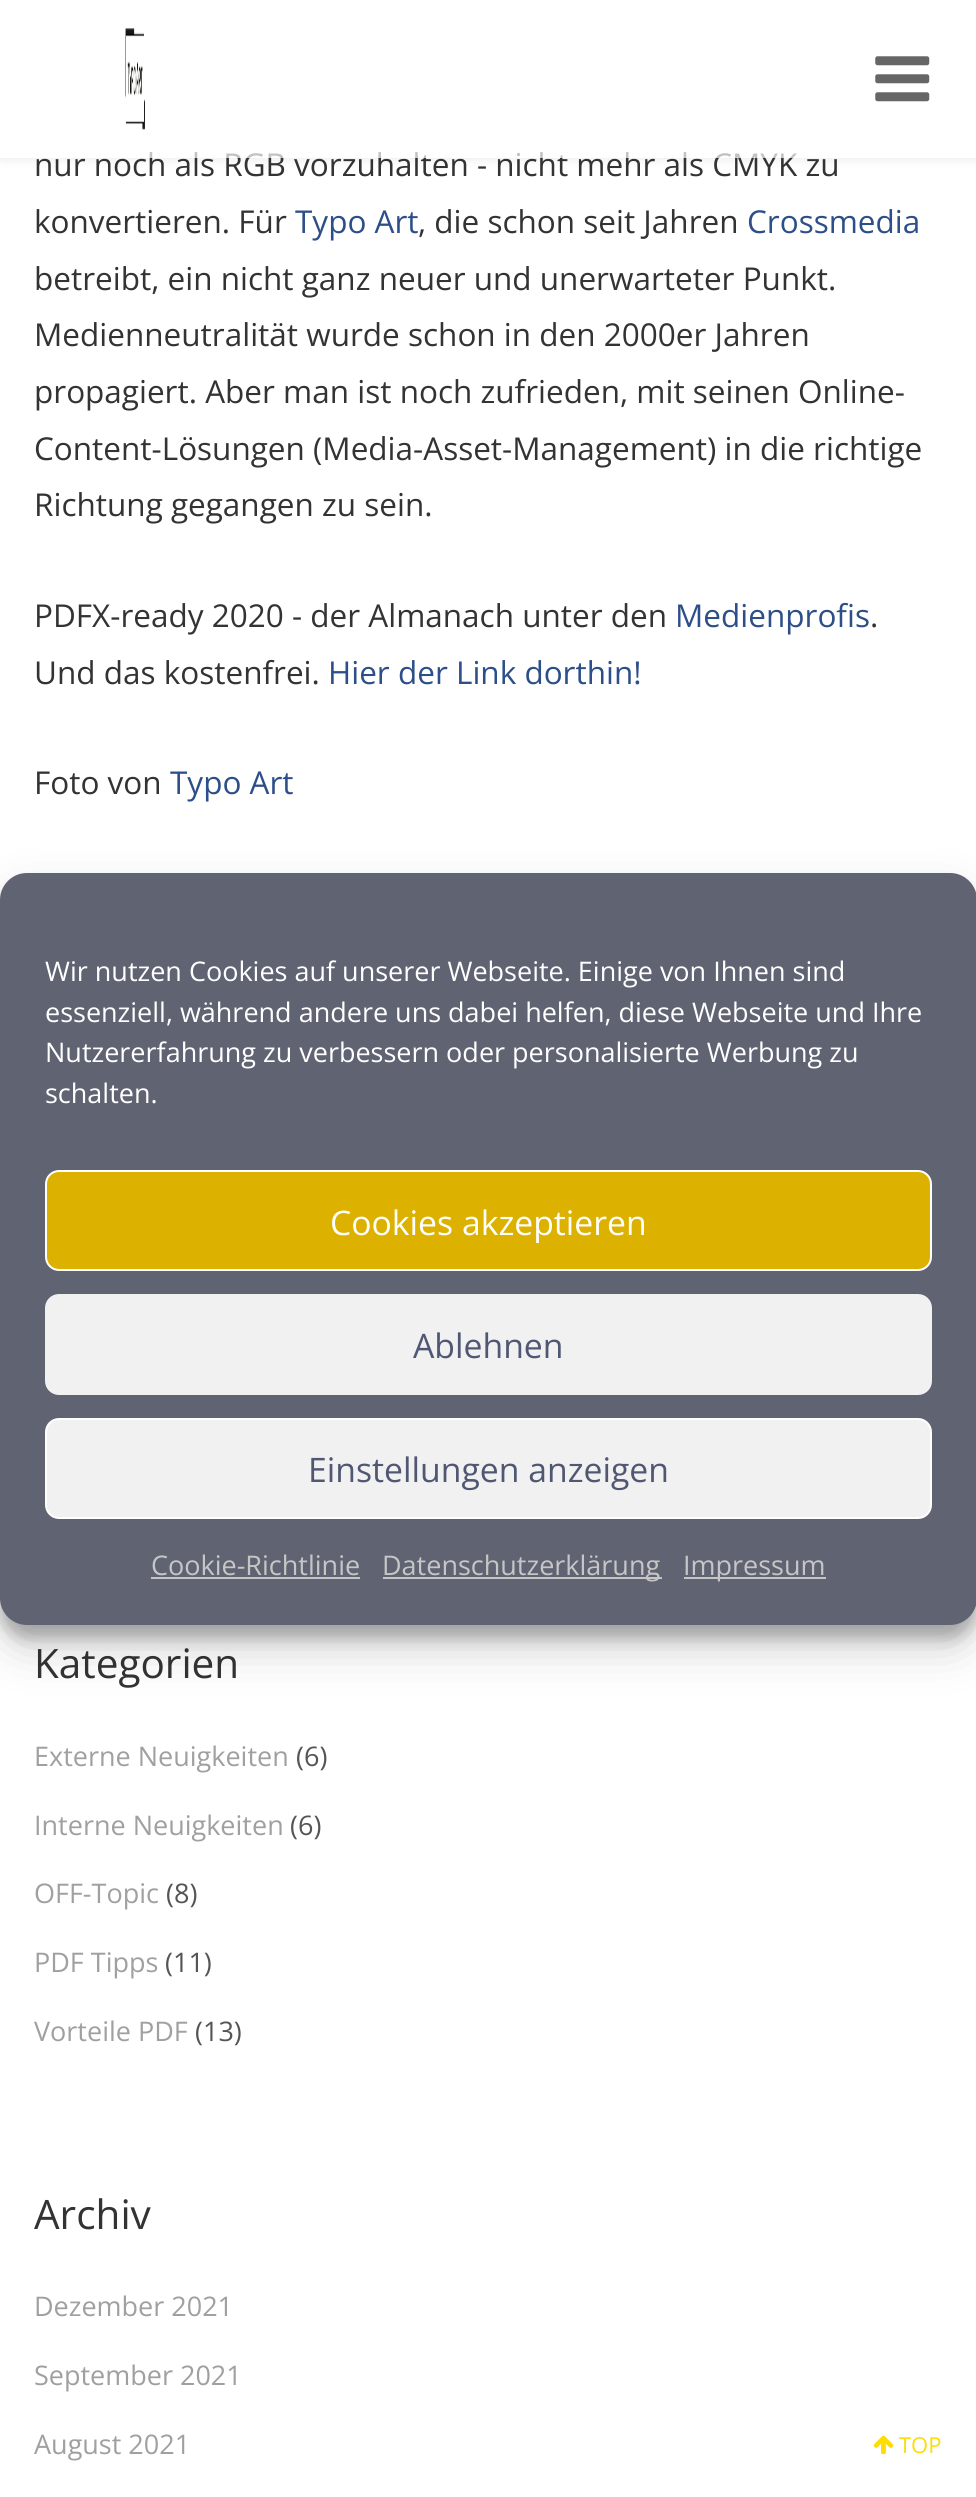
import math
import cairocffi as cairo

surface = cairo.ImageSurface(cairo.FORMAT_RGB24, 976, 2497)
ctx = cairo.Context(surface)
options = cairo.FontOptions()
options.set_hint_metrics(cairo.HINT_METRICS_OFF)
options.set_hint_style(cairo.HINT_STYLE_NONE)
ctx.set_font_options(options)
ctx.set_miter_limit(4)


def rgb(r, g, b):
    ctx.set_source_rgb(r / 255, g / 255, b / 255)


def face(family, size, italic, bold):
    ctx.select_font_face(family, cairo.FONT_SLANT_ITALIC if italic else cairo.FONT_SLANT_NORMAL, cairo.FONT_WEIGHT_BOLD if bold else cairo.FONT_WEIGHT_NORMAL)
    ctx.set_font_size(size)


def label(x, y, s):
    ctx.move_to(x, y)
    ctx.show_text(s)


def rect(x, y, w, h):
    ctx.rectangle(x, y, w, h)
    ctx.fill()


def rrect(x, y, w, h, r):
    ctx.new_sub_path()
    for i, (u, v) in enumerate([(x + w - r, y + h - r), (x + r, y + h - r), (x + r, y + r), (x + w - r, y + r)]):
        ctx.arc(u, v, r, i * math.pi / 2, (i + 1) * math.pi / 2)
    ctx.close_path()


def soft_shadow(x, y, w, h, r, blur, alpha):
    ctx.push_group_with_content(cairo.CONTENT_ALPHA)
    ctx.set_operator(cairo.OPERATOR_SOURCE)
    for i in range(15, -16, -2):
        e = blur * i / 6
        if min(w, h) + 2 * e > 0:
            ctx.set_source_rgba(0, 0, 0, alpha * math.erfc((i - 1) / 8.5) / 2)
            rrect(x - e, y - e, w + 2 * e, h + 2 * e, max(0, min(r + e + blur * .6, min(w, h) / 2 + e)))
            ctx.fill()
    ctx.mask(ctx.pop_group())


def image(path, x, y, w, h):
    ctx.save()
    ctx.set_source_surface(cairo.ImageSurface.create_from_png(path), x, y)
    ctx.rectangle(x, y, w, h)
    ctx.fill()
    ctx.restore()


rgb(255, 255, 255)
ctx.paint()
ctx.save()
ctx.set_fill_rule(cairo.FILL_RULE_EVEN_ODD)
ctx.new_path()
ctx.move_to(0, 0)
ctx.line_to(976, 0)
ctx.line_to(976, 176)
ctx.line_to(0, 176)
ctx.close_path()
ctx.move_to(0, 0)
ctx.line_to(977, 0)
ctx.line_to(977, 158)
ctx.line_to(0, 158)
ctx.close_path()
ctx.clip()
rgb(0, 0, 0)
soft_shadow(0, 0, 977, 158, 0, 5.5, 0.1)
ctx.restore()
face('Open Sans', 31.5, 0, 0)
rgb(51, 51, 51)
label(34, 176, 'nur noch als RGB vorzuhalten - nicht mehr als CMYK zu')
ctx.set_source_rgba(1, 1, 1, 0.7)
rect(1, 152, 975, 6)
image('image0.png', 125, 28, 20, 102)
image('image1.png', 875, 56, 55, 46)
rgb(51, 51, 51)
label(34, 233, 'konvertieren. Für')
rgb(45, 79, 137)
label(295, 233, 'Typo Art')
rgb(51, 51, 51)
label(418, 233, ', die schon seit Jahren')
rgb(45, 79, 137)
label(747, 233, 'Crossmedia')
rgb(51, 51, 51)
label(34, 290, 'betreibt, ein nicht ganz neuer und unerwarteter Punkt.')
label(34, 346, 'Medienneutralität wurde schon in den 2000er Jahren')
label(34, 403, 'propagiert. Aber man ist noch zufrieden, mit seinen Online-')
label(34, 460, 'Content-Lösungen (Media-Asset-Management) in die richtige')
label(34, 516, 'Richtung gegangen zu sein.')
label(34, 627, 'PDFX-ready 2020 - der Almanach unter den')
rgb(45, 79, 137)
label(675, 627, 'Medienprofis')
rgb(51, 51, 51)
label(870, 627, '.')
label(34, 684, 'Und das kostenfrei.')
rgb(45, 79, 137)
label(328, 684, 'Hier der Link dorthin!')
rgb(51, 51, 51)
label(34, 794, 'Foto von')
rgb(45, 79, 137)
label(170, 794, 'Typo Art')
face('Open Sans', 40.5, 0, 0)
rgb(51, 51, 51)
label(34, 1678, 'Kategorien')
face('Open Sans', 27, 0, 0)
rgb(160, 160, 160)
label(34, 1766, 'Externe Neuigkeiten')
rgb(85, 85, 85)
label(296, 1766, '(6)')
rgb(160, 160, 160)
label(34, 1835, 'Interne Neuigkeiten')
rgb(85, 85, 85)
label(290, 1835, '(6)')
rgb(160, 160, 160)
label(34, 1903, 'OFF-Topic')
rgb(85, 85, 85)
label(166, 1903, '(8)')
rgb(160, 160, 160)
label(34, 1972, 'PDF Tipps')
rgb(85, 85, 85)
label(165, 1972, '(11)')
rgb(160, 160, 160)
label(34, 2041, 'Vorteile PDF')
rgb(85, 85, 85)
label(195, 2041, '(13)')
face('Open Sans', 40.5, 0, 0)
rgb(51, 51, 51)
label(34, 2229, 'Archiv')
face('Open Sans', 27, 0, 0)
rgb(160, 160, 160)
label(34, 2316, 'Dezember 2021')
label(34, 2385, 'September 2021')
label(34, 2454, 'August 2021')
rgb(0, 0, 0)
soft_shadow(0, 887, 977, 751, 27, 7, 0.23)
soft_shadow(0, 896, 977, 751, 27, 22.5, 0.19)
rgb(96, 100, 114)
rrect(0, 873, 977, 752, 27)
ctx.fill()
rgb(255, 255, 255)
label(45, 981, 'Wir nutzen Cookies auf unserer Webseite. Einige von Ihnen sind')
label(45, 1022, 'essenziell, während andere uns dabei helfen, diese Webseite und Ihre')
label(45, 1062, 'Nutzererfahrung zu verbessern oder personalisierte Werbung zu')
label(45, 1103, 'schalten.')
rgb(221, 177, 0)
rrect(46, 1171, 885, 99, 13)
ctx.fill_preserve()
rgb(255, 255, 255)
ctx.stroke()
face('Open Sans', 33.75, 0, 0)
label(330, 1235, 'Cookies akzeptieren')
rgb(241, 241, 241)
rrect(46, 1295, 885, 99, 13)
ctx.fill_preserve()
ctx.stroke()
rgb(80, 87, 114)
label(413, 1358, 'Ablehnen')
rgb(241, 241, 241)
rrect(46, 1419, 885, 99, 13)
ctx.fill_preserve()
rgb(255, 255, 255)
ctx.stroke()
rgb(80, 87, 114)
label(308, 1482, 'Einstellungen anzeigen')
face('Open Sans', 27, 0, 0)
rgb(198, 198, 198)
label(151, 1575, 'Cookie-Richtlinie')
rect(151, 1577, 209, 2)
rect(383, 1577, 279, 2)
label(382, 1575, 'Datenschutzerklärung')
rect(684, 1577, 142, 2)
label(683, 1575, 'Impressum')
image('image2.png', 873, 2435, 21, 20)
face('Open Sans', 22, 0, 0)
rgb(255, 220, 2)
label(899, 2453, 'TOP')
surface.write_to_png('render.png')
